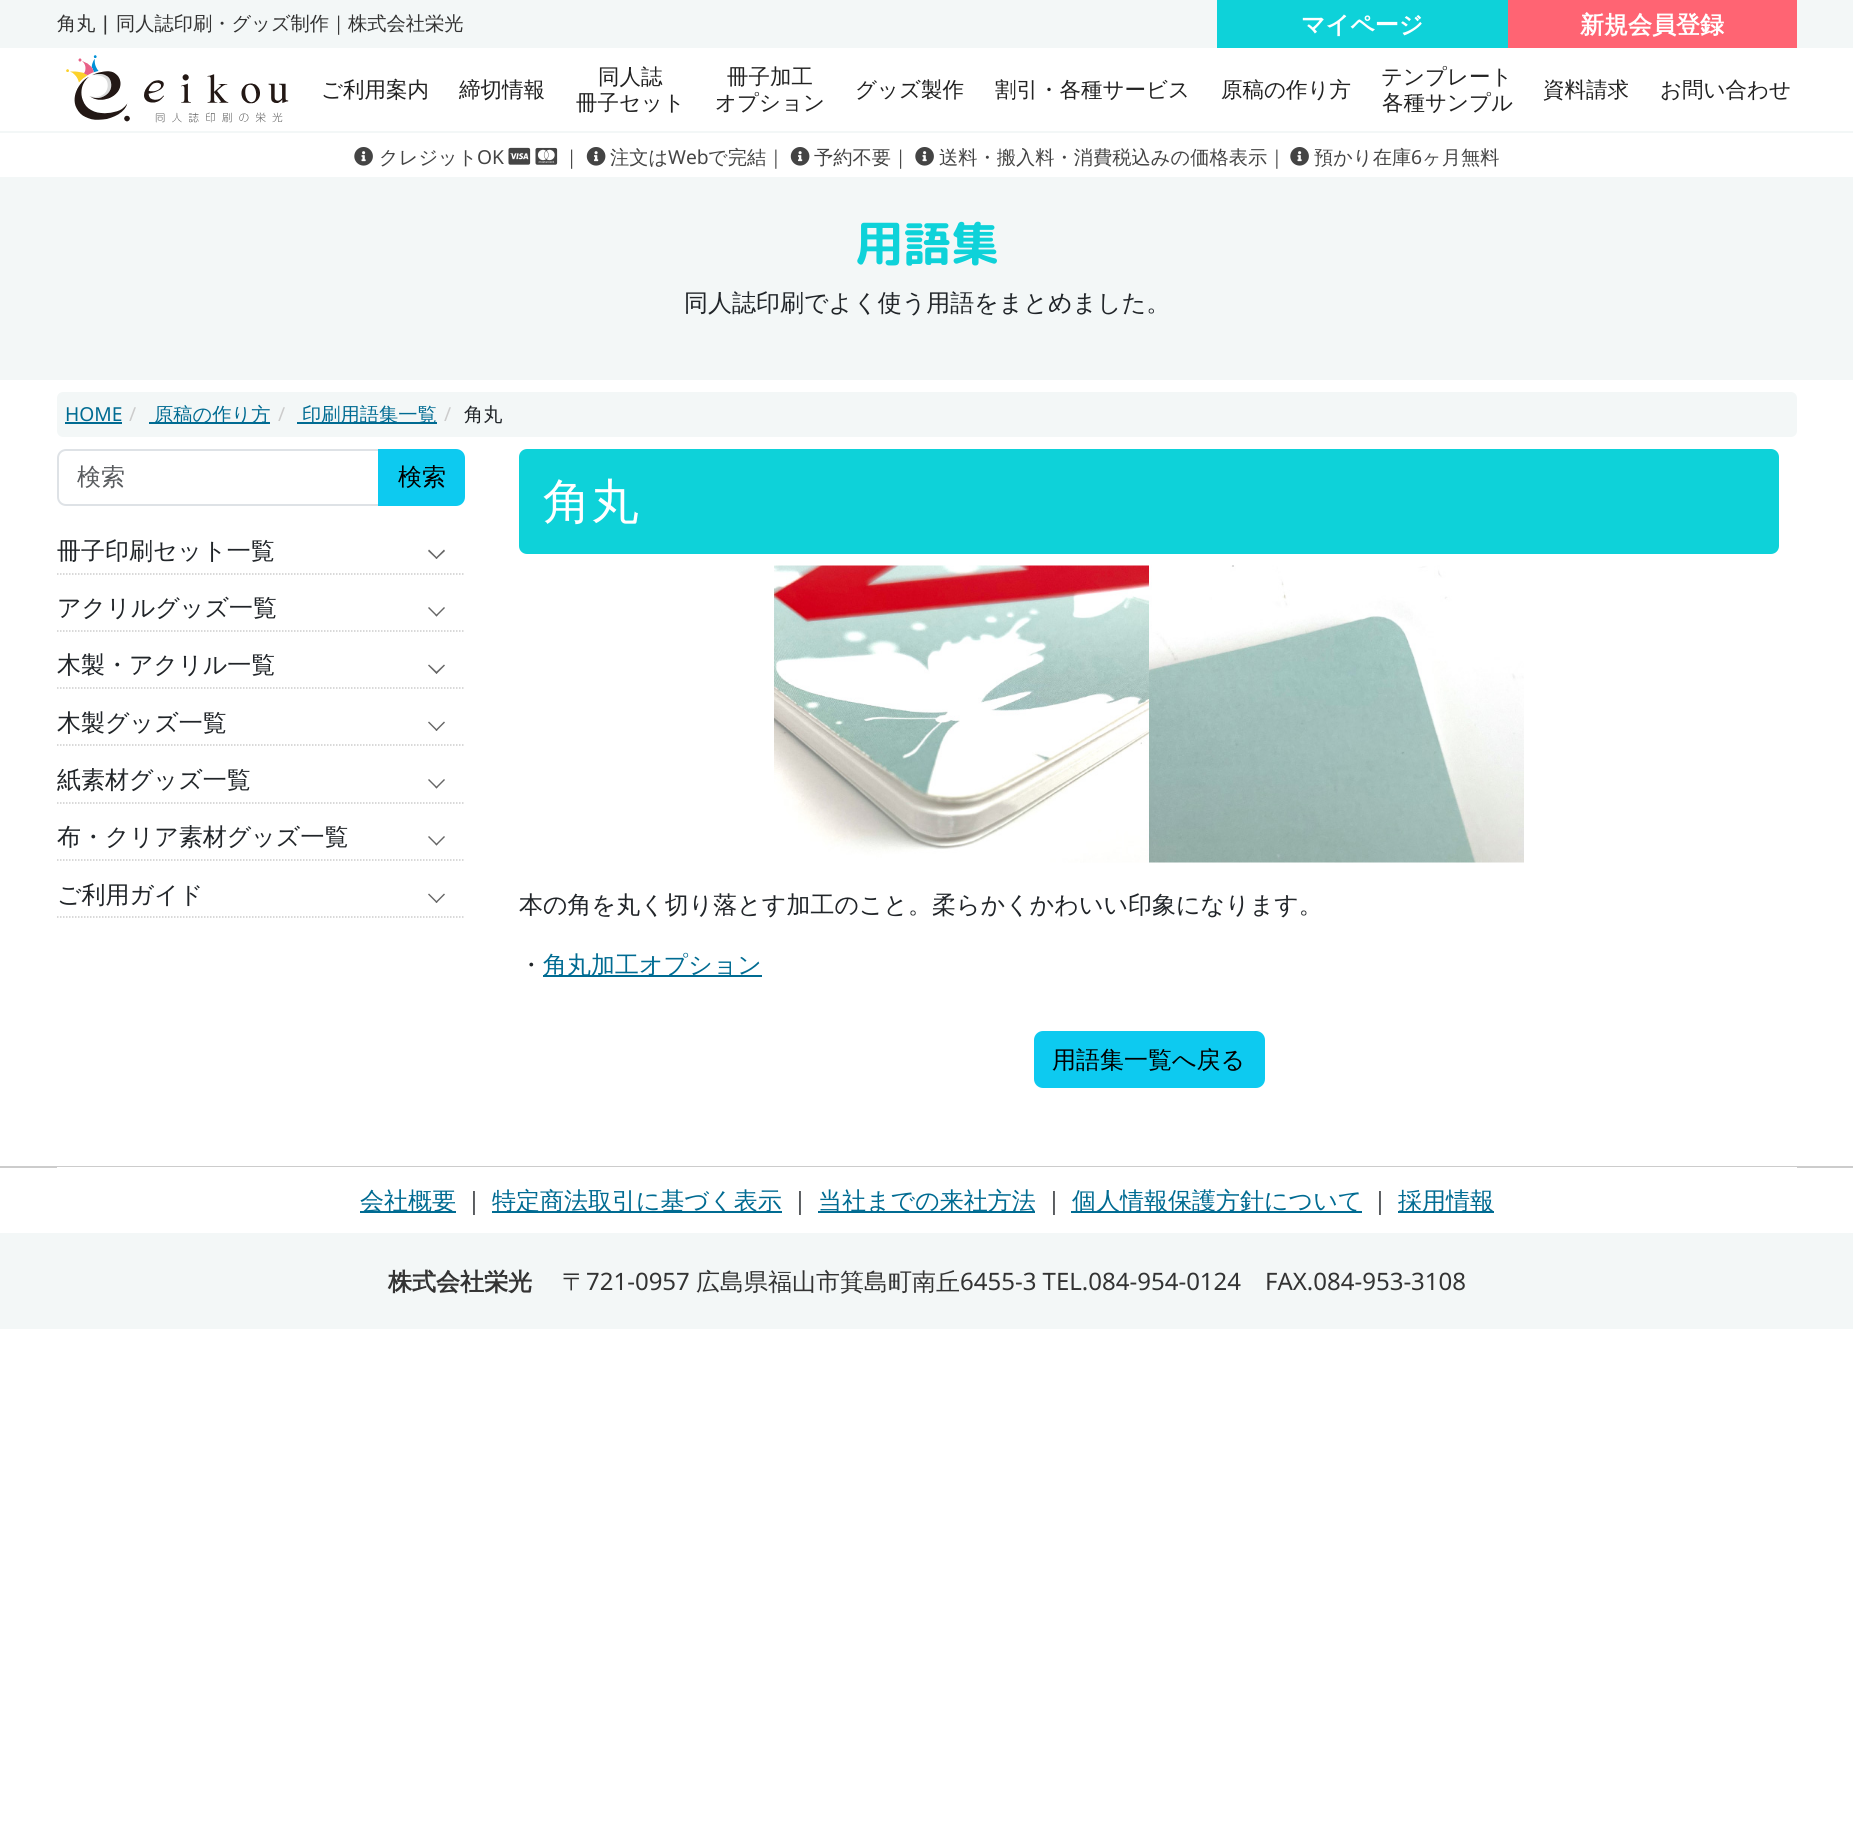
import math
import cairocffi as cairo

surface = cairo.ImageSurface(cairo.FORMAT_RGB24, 1853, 1832)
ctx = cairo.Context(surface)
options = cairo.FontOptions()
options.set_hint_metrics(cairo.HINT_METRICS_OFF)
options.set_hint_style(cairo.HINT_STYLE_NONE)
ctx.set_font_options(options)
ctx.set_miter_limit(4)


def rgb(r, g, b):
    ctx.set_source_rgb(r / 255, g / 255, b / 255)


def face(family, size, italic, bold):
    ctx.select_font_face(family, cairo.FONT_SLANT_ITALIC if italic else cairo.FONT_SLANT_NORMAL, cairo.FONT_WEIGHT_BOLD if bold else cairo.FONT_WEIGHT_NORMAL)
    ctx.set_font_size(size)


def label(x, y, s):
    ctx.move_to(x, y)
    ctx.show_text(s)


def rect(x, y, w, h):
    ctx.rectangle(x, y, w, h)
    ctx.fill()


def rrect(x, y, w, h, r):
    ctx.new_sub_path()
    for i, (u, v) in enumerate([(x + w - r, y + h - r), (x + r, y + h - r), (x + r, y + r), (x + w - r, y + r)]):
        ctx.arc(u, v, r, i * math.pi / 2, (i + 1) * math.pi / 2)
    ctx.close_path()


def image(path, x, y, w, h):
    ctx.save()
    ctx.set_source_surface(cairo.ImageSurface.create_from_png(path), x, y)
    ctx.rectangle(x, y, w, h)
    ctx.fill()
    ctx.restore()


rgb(255, 255, 255)
ctx.paint()
rgb(243, 247, 247)
rect(0, 0, 1853, 48)
face('WenQuanYi Zen Hei Medium', 19.25, 0, 0)
rgb(51, 51, 51)
label(57, 30, '角丸')
face('Noto Sans Medium', 19.25, 0, 0)
label(100, 30, '|')
face('WenQuanYi Zen Hei Medium', 19.25, 0, 0)
label(116, 30, '同人誌印刷・グッズ制作｜株式会社栄光')
rgb(14, 210, 217)
rect(1217, 0, 291, 48)
face('WenQuanYi Zen Hei', 24, 0, 1)
rgb(255, 255, 255)
label(1301, 33, 'マイページ')
rgb(255, 100, 115)
rect(1508, 0, 289, 48)
rgb(255, 255, 255)
label(1580, 33, '新規会員登録')
rgb(243, 247, 247)
rect(0, 131, 1853, 2)
image('image0.png', 66, 55, 223, 68)
face('WenQuanYi Zen Hei Medium', 21.5, 0, 0)
rgb(34, 34, 34)
label(321, 97, 'ご利用案内')
label(459, 97, '締切情報')
label(598, 84, '同人誌')
label(576, 110, '冊子セット')
label(727, 84, '冊子加工')
label(715, 110, 'オプション')
label(855, 97, 'グッズ製作')
label(995, 97, '割引・各種サービス')
label(1221, 97, '原稿の作り方')
label(1381, 84, 'テンプレート')
label(1382, 110, '各種サンプル')
label(1543, 97, '資料請求')
label(1660, 97, 'お問い合わせ')
rgb(243, 247, 247)
rect(0, 177, 1853, 203)
image('image1.png', 354, 147, 19, 19)
face('WenQuanYi Zen Hei Medium', 19.25, 0, 0)
rgb(68, 68, 68)
label(379, 164, 'クレジット')
face('Noto Sans', 19.25, 0, 0)
label(477, 164, 'OK')
image('image2.png', 508, 147, 23, 18)
image('image3.png', 535, 147, 23, 18)
face('WenQuanYi Zen Hei Medium', 19.25, 0, 0)
label(562, 164, '｜')
image('image4.png', 586, 147, 20, 19)
label(610, 164, '注文は')
face('Noto Sans', 19.25, 0, 0)
label(668, 164, 'Web')
face('WenQuanYi Zen Hei Medium', 19.25, 0, 0)
label(708, 164, 'で完結｜')
image('image4.png', 790, 147, 20, 19)
label(814, 164, '予約不要｜')
image('image1.png', 915, 147, 19, 19)
label(939, 164, '送料・搬入料・消費税込みの価格表示｜')
image('image1.png', 1290, 147, 19, 19)
label(1314, 164, '預かり在庫')
face('Noto Sans', 19.25, 0, 0)
label(1411, 164, '6')
face('WenQuanYi Zen Hei Medium', 19.25, 0, 0)
label(1422, 164, 'ヶ月無料')
face('Rounded Mplus 1c Bold', 48, 0, 1)
rgb(14, 210, 217)
label(855, 261, '用語集')
face('WenQuanYi Zen Hei Medium', 24, 0, 0)
rgb(33, 37, 41)
label(684, 311, '同人誌印刷でよく使う用語をまとめました。')
rgb(243, 247, 247)
rrect(57, 392, 1740, 45, 6)
ctx.fill()
face('Noto Sans', 19.25, 0, 0)
rgb(0, 107, 146)
label(65, 421, 'HOME')
rect(65, 422, 57, 2)
rgb(204, 204, 204)
label(129, 421, '/')
rgb(0, 107, 146)
rect(149, 422, 121, 2)
face('WenQuanYi Zen Hei Medium', 19.25, 0, 0)
label(154, 421, '原稿の作り方')
face('Noto Sans', 19.25, 0, 0)
rgb(204, 204, 204)
label(278, 421, '/')
rgb(0, 107, 146)
rect(297, 422, 140, 2)
face('WenQuanYi Zen Hei Medium', 19.25, 0, 0)
label(302, 421, '印刷用語集一覧')
face('Noto Sans', 19.25, 0, 0)
rgb(204, 204, 204)
label(444, 421, '/')
face('WenQuanYi Zen Hei Medium', 19.25, 0, 0)
rgb(33, 37, 41)
label(464, 421, '角丸')
ctx.new_path()
ctx.move_to(66, 450)
ctx.line_to(379, 450)
ctx.line_to(379, 505)
ctx.line_to(66, 505)
ctx.curve_to(61.5, 505, 58, 501.5, 58, 497)
ctx.line_to(58, 458)
ctx.curve_to(58, 453.5, 61.5, 450, 66, 450)
ctx.close_path()
rgb(222, 226, 230)
ctx.stroke()
face('WenQuanYi Zen Hei Medium', 24, 0, 0)
rgb(89, 92, 95)
label(77, 485, '検索')
rgb(13, 202, 240)
ctx.new_path()
ctx.move_to(379, 450)
ctx.line_to(456, 450)
ctx.curve_to(460.5, 450, 464, 453.5, 464, 458)
ctx.line_to(464, 497)
ctx.curve_to(464, 501.5, 460.5, 505, 456, 505)
ctx.line_to(379, 505)
ctx.close_path()
ctx.fill_preserve()
ctx.stroke()
rgb(0, 0, 0)
label(398, 485, '検索')
ctx.new_path()
ctx.move_to(57, 574)
ctx.line_to(465, 574)
rgb(204, 204, 204)
ctx.set_line_width(1.5)
ctx.set_dash([1.5, 1.5])
ctx.stroke()
rgb(33, 37, 41)
label(57, 559, '冊子印刷セット一覧')
rgb(102, 102, 102)
ctx.new_path()
ctx.move_to(445, 551)
ctx.line_to(436.5, 559)
ctx.line_to(435.5, 558)
ctx.line_to(444, 549.5)
ctx.close_path()
ctx.fill()
ctx.new_path()
ctx.move_to(437.5, 558)
ctx.line_to(436.5, 559)
ctx.line_to(428, 551)
ctx.line_to(429, 549.5)
ctx.close_path()
ctx.fill()
ctx.new_path()
ctx.move_to(57, 631)
ctx.line_to(465, 631)
rgb(204, 204, 204)
ctx.stroke()
rgb(33, 37, 41)
label(57, 616, 'アクリルグッズ一覧')
rgb(102, 102, 102)
ctx.new_path()
ctx.move_to(445, 608)
ctx.line_to(436.5, 616.5)
ctx.line_to(435.5, 615.5)
ctx.line_to(444, 607)
ctx.close_path()
ctx.fill()
ctx.new_path()
ctx.move_to(437.5, 615.5)
ctx.line_to(436.5, 616.5)
ctx.line_to(428, 608)
ctx.line_to(429, 607)
ctx.close_path()
ctx.fill()
ctx.new_path()
ctx.move_to(57, 688)
ctx.line_to(465, 688)
rgb(204, 204, 204)
ctx.stroke()
rgb(33, 37, 41)
label(57, 673, '木製・アクリル一覧')
rgb(102, 102, 102)
ctx.new_path()
ctx.move_to(445, 665.5)
ctx.line_to(436.5, 674)
ctx.line_to(435.5, 672.5)
ctx.line_to(444, 664.5)
ctx.close_path()
ctx.fill()
ctx.new_path()
ctx.move_to(437.5, 672.5)
ctx.line_to(436.5, 674)
ctx.line_to(428, 665.5)
ctx.line_to(429, 664.5)
ctx.close_path()
ctx.fill()
ctx.new_path()
ctx.move_to(57, 745)
ctx.line_to(465, 745)
rgb(204, 204, 204)
ctx.stroke()
rgb(33, 37, 41)
label(57, 731, '木製グッズ一覧')
rgb(102, 102, 102)
ctx.new_path()
ctx.move_to(445, 722.5)
ctx.line_to(436.5, 731)
ctx.line_to(435.5, 730)
ctx.line_to(444, 721.5)
ctx.close_path()
ctx.fill()
ctx.new_path()
ctx.move_to(437.5, 730)
ctx.line_to(436.5, 731)
ctx.line_to(428, 722.5)
ctx.line_to(429, 721.5)
ctx.close_path()
ctx.fill()
ctx.new_path()
ctx.move_to(57, 803)
ctx.line_to(465, 803)
rgb(204, 204, 204)
ctx.stroke()
rgb(33, 37, 41)
label(57, 788, '紙素材グッズ一覧')
rgb(102, 102, 102)
ctx.new_path()
ctx.move_to(445, 780)
ctx.line_to(436.5, 788.5)
ctx.line_to(435.5, 787.5)
ctx.line_to(444, 779)
ctx.close_path()
ctx.fill()
ctx.new_path()
ctx.move_to(437.5, 787.5)
ctx.line_to(436.5, 788.5)
ctx.line_to(428, 780)
ctx.line_to(429, 779)
ctx.close_path()
ctx.fill()
ctx.new_path()
ctx.move_to(57, 860)
ctx.line_to(465, 860)
rgb(204, 204, 204)
ctx.stroke()
rgb(33, 37, 41)
label(57, 845, '布・クリア素材グッズ一覧')
rgb(102, 102, 102)
ctx.new_path()
ctx.move_to(445, 837)
ctx.line_to(436.5, 845.5)
ctx.line_to(435.5, 844.5)
ctx.line_to(444, 836)
ctx.close_path()
ctx.fill()
ctx.new_path()
ctx.move_to(437.5, 844.5)
ctx.line_to(436.5, 845.5)
ctx.line_to(428, 837)
ctx.line_to(429, 836)
ctx.close_path()
ctx.fill()
ctx.new_path()
ctx.move_to(57, 917)
ctx.line_to(465, 917)
rgb(204, 204, 204)
ctx.stroke()
rgb(33, 37, 41)
label(57, 903, 'ご利用ガイド')
rgb(102, 102, 102)
ctx.new_path()
ctx.move_to(445, 894.5)
ctx.line_to(436.5, 903)
ctx.line_to(435.5, 902)
ctx.line_to(444, 893.5)
ctx.close_path()
ctx.fill()
ctx.new_path()
ctx.move_to(437.5, 902)
ctx.line_to(436.5, 903)
ctx.line_to(428, 894.5)
ctx.line_to(429, 893.5)
ctx.close_path()
ctx.fill()
rgb(14, 210, 217)
rrect(519, 449, 1260, 105, 8)
ctx.fill()
face('WenQuanYi Zen Hei Medium', 48, 0, 0)
rgb(255, 255, 255)
label(543, 518, '角丸')
image('image5.png', 774, 565, 750, 298)
face('WenQuanYi Zen Hei Medium', 24, 0, 0)
rgb(33, 37, 41)
label(519, 913, '本の角を丸く切り落とす加工のこと。柔らかくかわいい印象になります。')
label(519, 973, '・')
rgb(0, 107, 146)
rect(543, 975, 219, 2)
label(543, 973, '角丸加工オプション')
rgb(13, 202, 240)
rrect(1035, 1032, 229, 55, 8)
ctx.fill_preserve()
ctx.set_line_width(2)
ctx.set_dash([])
ctx.stroke()
rgb(0, 0, 0)
label(1052, 1068, '用語集一覧へ戻る')
rgb(204, 204, 204)
rect(0, 1166, 1853, 2)
rgb(255, 255, 255)
rect(57, 1167, 1740, 1)
rgb(0, 107, 146)
rect(360, 1211, 96, 2)
label(360, 1209, '会社概要')
rgb(33, 37, 41)
label(462, 1209, '｜')
rgb(0, 107, 146)
rect(492, 1211, 290, 2)
label(492, 1209, '特定商法取引に基づく表示')
rgb(33, 37, 41)
label(788, 1209, '｜')
rgb(0, 107, 146)
rect(818, 1211, 217, 2)
label(818, 1209, '当社までの来社方法')
rgb(33, 37, 41)
label(1042, 1209, '｜')
rgb(0, 107, 146)
rect(1071, 1211, 291, 2)
label(1072, 1209, '個人情報保護方針について')
rgb(33, 37, 41)
label(1368, 1209, '｜')
rgb(0, 107, 146)
rect(1398, 1211, 96, 2)
label(1398, 1209, '採用情報')
rgb(243, 247, 247)
rect(0, 1233, 1853, 96)
face('WenQuanYi Zen Hei', 24, 0, 1)
rgb(51, 51, 51)
label(388, 1290, '株式会社栄光')
face('WenQuanYi Zen Hei Medium', 24, 0, 0)
label(562, 1290, '〒')
face('Noto Sans', 24, 0, 0)
label(586, 1290, '721-0957')
face('WenQuanYi Zen Hei Medium', 24, 0, 0)
label(696, 1290, '広島県福山市箕島町南丘')
face('Noto Sans', 24, 0, 0)
label(960, 1290, '6455-3 TEL.084-954-0124')
label(1265, 1290, 'FAX.084-953-3108')
surface.write_to_png('render.png')
